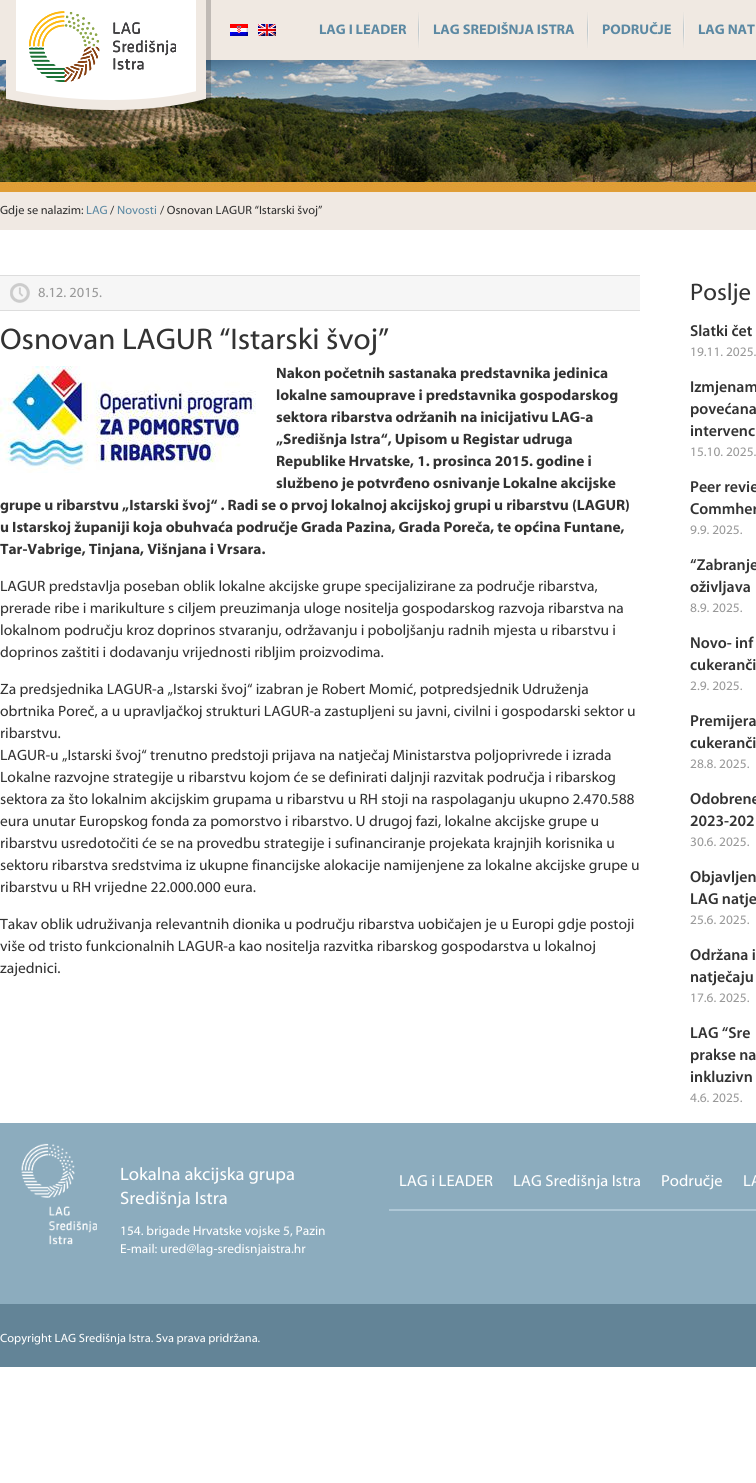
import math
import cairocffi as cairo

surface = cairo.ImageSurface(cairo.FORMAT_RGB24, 756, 1483)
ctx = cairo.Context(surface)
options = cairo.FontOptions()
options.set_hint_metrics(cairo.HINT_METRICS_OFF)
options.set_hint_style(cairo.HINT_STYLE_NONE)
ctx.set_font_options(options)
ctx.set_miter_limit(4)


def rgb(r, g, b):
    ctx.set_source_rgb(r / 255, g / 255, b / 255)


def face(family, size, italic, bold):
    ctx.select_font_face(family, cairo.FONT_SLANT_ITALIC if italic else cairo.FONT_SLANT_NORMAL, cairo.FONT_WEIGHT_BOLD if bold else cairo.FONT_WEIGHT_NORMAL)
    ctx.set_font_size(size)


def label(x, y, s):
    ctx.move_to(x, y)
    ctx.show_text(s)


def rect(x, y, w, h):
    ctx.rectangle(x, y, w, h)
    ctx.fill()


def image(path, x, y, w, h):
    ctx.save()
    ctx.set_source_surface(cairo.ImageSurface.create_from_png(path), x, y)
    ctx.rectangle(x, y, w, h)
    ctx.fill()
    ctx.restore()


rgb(255, 255, 255)
ctx.paint()
rgb(240, 233, 226)
rect(0, 0, 756, 60)
image('image5.png', 0, 60, 756, 170)
image('image0.png', 6, 0, 205, 121)
image('image1.png', 29, 11, 147, 71)
image('image2.png', 230, 24, 18, 12)
image('image3.png', 258, 24, 18, 12)
image('image4.png', 418, 12, 2, 36)
face('Myriad', 14, 0, 1)
rgb(92, 137, 163)
label(319, 34, 'LAG I LEADER')
image('image4.png', 587, 12, 2, 36)
label(433, 34, 'LAG SREDIŠNJA ISTRA')
image('image4.png', 683, 12, 2, 36)
label(602, 34, 'PODRUČJE')
label(698, 34, 'LAG NAT')
face('Myriad', 12, 0, 0)
rgb(51, 51, 51)
label(0, 214, 'Gdje se nalazim:')
rgb(92, 137, 163)
label(86, 214, 'LAG')
rgb(51, 51, 51)
label(110, 214, '/')
rgb(92, 137, 163)
label(117, 214, 'Novosti')
rgb(51, 51, 51)
label(160, 214, '/ Osnovan LAGUR “Istarski švoj”')
rgb(246, 246, 246)
rect(0, 276, 640, 34)
image('image6.png', 10, 283, 20, 20)
rgb(221, 221, 221)
rect(0, 275, 640, 1)
rect(0, 310, 640, 1)
face('Myriad', 14, 0, 0)
rgb(153, 153, 153)
label(38, 297, '8.12. 2015.')
face('Myriad', 30, 0, 0)
rgb(51, 51, 51)
label(0, 349, 'Osnovan LAGUR “Istarski švoj”')
image('image7.png', 0, 366, 256, 107)
face('Myriad', 15, 0, 1)
label(276, 378, 'Nakon početnih sastanaka predstavnika jedinica')
label(276, 400, 'lokalne samouprave i predstavnika gospodarskog')
label(276, 422, 'sektora ribarstva održanih na inicijativu LAG-a')
label(276, 444, '„Središnja Istra“, Upisom u Registar udruga')
label(276, 466, 'Republike Hrvatske, 1. prosinca 2015. godine i')
label(276, 488, 'službeno je potvrđeno osnivanje Lokalne akcijske')
label(0, 510, 'grupe u ribarstvu „Istarski švoj“ . Radi se o prvoj lokalnoj akcijskoj grupi u ribarstvu (LAGUR)')
label(0, 532, 'u Istarskoj županiji koja obuhvaća područje Grada Pazina, Grada Poreča, te općina Funtane,')
label(0, 554, 'Tar-Vabrige, Tinjana, Višnjana i Vrsara.')
face('Myriad', 15, 0, 0)
label(0, 591, 'LAGUR predstavlja poseban oblik lokalne akcijske grupe specijalizirane za područje ribarstva,')
label(0, 613, 'prerade ribe i marikulture s ciljem preuzimanja uloge nositelja gospodarskog razvoja ribarstva na')
label(0, 635, 'lokalnom području kroz doprinos stvaranju, održavanju i poboljšanju radnih mjesta u ribarstvu i')
label(0, 657, 'doprinos zaštiti i dodavanju vrijednosti ribljim proizvodima.')
label(0, 694, 'Za predsjednika LAGUR-a „Istarski švoj“ izabran je Robert Momić, potpredsjednik Udruženja')
label(0, 716, 'obrtnika Poreč, a u upravljačkoj strukturi LAGUR-a zastupljeni su javni, civilni i gospodarski sektor u')
label(0, 738, 'ribarstvu.')
label(0, 760, 'LAGUR-u „Istarski švoj“ trenutno predstoji prijava na natječaj Ministarstva poljoprivrede i izrada')
label(0, 782, 'Lokalne razvojne strategije u ribarstvu kojom će se definirati daljnji razvitak područja i ribarskog')
label(0, 804, 'sektora za što lokalnim akcijskim grupama u ribarstvu u RH stoji na raspolaganju ukupno 2.470.588')
label(0, 826, 'eura unutar Europskog fonda za pomorstvo i ribarstvo. U drugoj fazi, lokalne akcijske grupe u')
label(0, 848, 'ribarstvu usredotočiti će se na provedbu strategije i sufinanciranje projekata krajnjih korisnika u')
label(0, 870, 'sektoru ribarstva sredstvima iz ukupne financijske alokacije namijenjene za lokalne akcijske grupe u')
label(0, 892, 'ribarstvu u RH vrijedne 22.000.000 eura.')
label(0, 929, 'Takav oblik udruživanja relevantnih dionika u području ribarstva uobičajen je u Europi gdje postoji')
label(0, 951, 'više od tristo funkcionalnih LAGUR-a kao nositelja razvitka ribarskog gospodarstva u lokalnoj')
label(0, 973, 'zajednici.')
face('Myriad', 24, 0, 0)
label(690, 300, 'Poslje')
face('Myriad SemiBold', 15, 0, 0)
label(690, 336, 'Slatki čet')
face('Myriad', 13, 0, 0)
rgb(153, 153, 153)
label(690, 356, '19.11. 2025.')
face('Myriad SemiBold', 15, 0, 0)
rgb(51, 51, 51)
label(690, 392, 'Izmjenam')
label(690, 414, 'povećana')
label(690, 436, 'intervenc')
face('Myriad', 13, 0, 0)
rgb(153, 153, 153)
label(690, 456, '15.10. 2025.')
face('Myriad SemiBold', 15, 0, 0)
rgb(51, 51, 51)
label(690, 492, 'Peer revie')
label(690, 514, 'Commher')
face('Myriad', 13, 0, 0)
rgb(153, 153, 153)
label(690, 534, '9.9. 2025.')
face('Myriad SemiBold', 15, 0, 0)
rgb(51, 51, 51)
label(690, 570, '“Zabranje')
label(690, 592, 'oživljava')
face('Myriad', 13, 0, 0)
rgb(153, 153, 153)
label(690, 612, '8.9. 2025.')
face('Myriad SemiBold', 15, 0, 0)
rgb(51, 51, 51)
label(690, 648, 'Novo- inf')
label(690, 670, 'cukeranči')
face('Myriad', 13, 0, 0)
rgb(153, 153, 153)
label(690, 690, '2.9. 2025.')
face('Myriad SemiBold', 15, 0, 0)
rgb(51, 51, 51)
label(690, 726, 'Premijera')
label(690, 748, 'cukeranči')
face('Myriad', 13, 0, 0)
rgb(153, 153, 153)
label(690, 768, '28.8. 2025.')
face('Myriad SemiBold', 15, 0, 0)
rgb(51, 51, 51)
label(690, 804, 'Odobrene')
label(690, 826, '2023-202')
face('Myriad', 13, 0, 0)
rgb(153, 153, 153)
label(690, 846, '30.6. 2025.')
face('Myriad SemiBold', 15, 0, 0)
rgb(51, 51, 51)
label(690, 882, 'Objavljen')
label(690, 904, 'LAG natje')
face('Myriad', 13, 0, 0)
rgb(153, 153, 153)
label(690, 924, '25.6. 2025.')
face('Myriad SemiBold', 15, 0, 0)
rgb(51, 51, 51)
label(690, 960, 'Održana i')
label(690, 982, 'natječaju')
face('Myriad', 13, 0, 0)
rgb(153, 153, 153)
label(690, 1002, '17.6. 2025.')
face('Myriad SemiBold', 15, 0, 0)
rgb(51, 51, 51)
label(690, 1038, 'LAG “Sre')
label(690, 1060, 'prakse na')
label(690, 1082, 'inkluzivn')
face('Myriad', 13, 0, 0)
rgb(153, 153, 153)
label(690, 1102, '4.6. 2025.')
image('image8.png', 0, 1123, 756, 244)
image('image9.png', 21, 1143, 76, 102)
face('Myriad', 18, 0, 0)
rgb(255, 255, 255)
label(120, 1180, 'Lokalna akcijska grupa')
label(120, 1204, 'Središnja Istra')
rgb(174, 199, 214)
rect(389, 1209, 367, 2)
face('Myriad', 16, 0, 0)
rgb(255, 255, 255)
label(399, 1186, 'LAG i LEADER')
label(513, 1186, 'LAG Središnja Istra')
label(661, 1186, 'Područje')
label(743, 1186, 'LA')
face('Myriad', 13, 0, 0)
label(120, 1235, '154. brigade Hrvatske vojske 5, Pazin')
label(120, 1253, 'E-mail: ured@lag-sredisnjaistra.hr')
face('Myriad', 12, 0, 0)
label(0, 1342, 'Copyright LAG Središnja Istra. Sva prava pridržana.')
surface.write_to_png('render.png')
